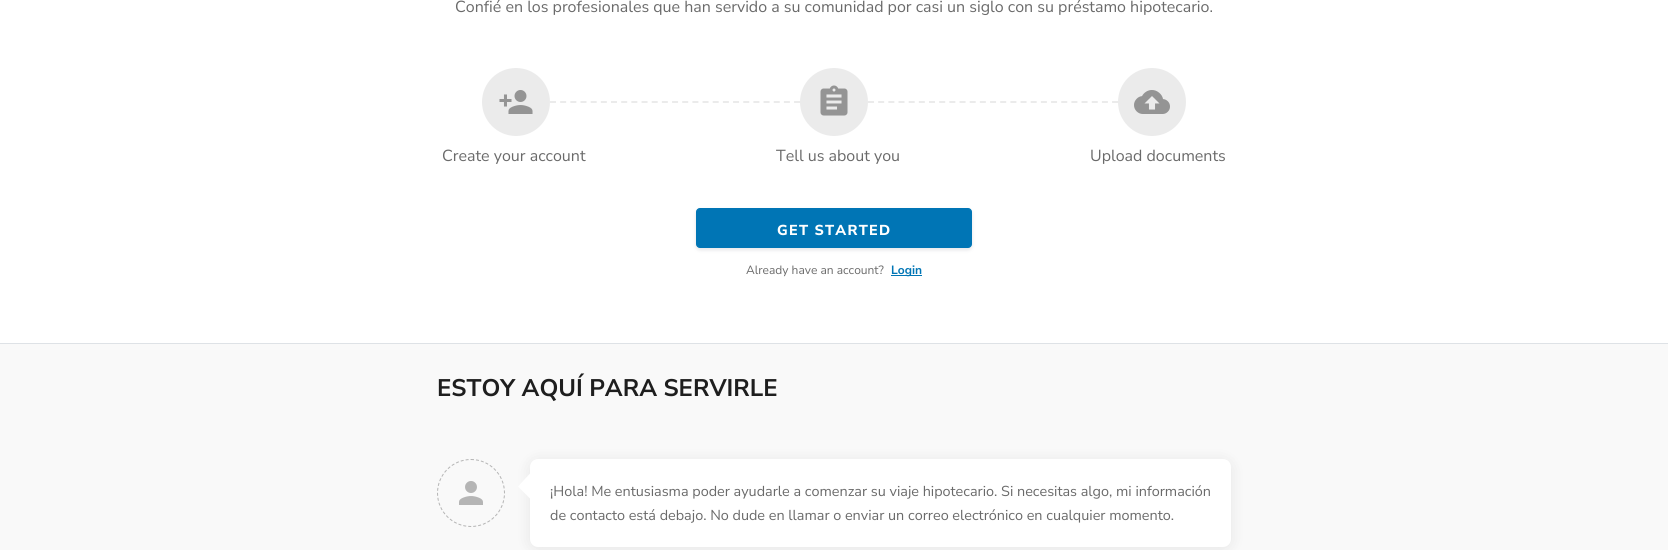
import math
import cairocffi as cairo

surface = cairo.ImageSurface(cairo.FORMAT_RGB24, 1668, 550)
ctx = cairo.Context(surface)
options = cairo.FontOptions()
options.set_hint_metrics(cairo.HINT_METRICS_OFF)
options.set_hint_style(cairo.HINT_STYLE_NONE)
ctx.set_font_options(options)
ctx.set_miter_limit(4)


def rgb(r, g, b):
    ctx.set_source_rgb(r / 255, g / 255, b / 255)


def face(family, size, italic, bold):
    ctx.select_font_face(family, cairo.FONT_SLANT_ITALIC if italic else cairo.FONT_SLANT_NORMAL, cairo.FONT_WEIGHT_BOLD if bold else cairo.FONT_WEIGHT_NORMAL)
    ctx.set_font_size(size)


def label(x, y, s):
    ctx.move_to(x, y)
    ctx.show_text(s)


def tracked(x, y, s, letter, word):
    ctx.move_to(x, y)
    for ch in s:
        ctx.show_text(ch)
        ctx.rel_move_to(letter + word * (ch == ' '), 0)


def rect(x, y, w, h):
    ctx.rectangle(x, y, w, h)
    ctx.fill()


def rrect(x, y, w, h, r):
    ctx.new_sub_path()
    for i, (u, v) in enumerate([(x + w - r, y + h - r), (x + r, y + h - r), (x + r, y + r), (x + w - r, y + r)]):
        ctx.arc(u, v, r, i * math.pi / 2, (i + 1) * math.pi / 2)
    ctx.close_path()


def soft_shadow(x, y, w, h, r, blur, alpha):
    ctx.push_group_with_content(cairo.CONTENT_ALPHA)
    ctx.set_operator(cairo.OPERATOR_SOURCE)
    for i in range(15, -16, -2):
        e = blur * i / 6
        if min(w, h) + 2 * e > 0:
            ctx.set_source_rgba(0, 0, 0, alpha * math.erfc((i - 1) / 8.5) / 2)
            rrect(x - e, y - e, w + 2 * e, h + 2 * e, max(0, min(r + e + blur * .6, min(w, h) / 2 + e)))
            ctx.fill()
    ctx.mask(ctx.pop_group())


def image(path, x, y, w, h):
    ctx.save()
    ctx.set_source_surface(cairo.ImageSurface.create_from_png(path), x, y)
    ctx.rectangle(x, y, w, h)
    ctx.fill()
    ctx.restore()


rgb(249, 249, 249)
ctx.paint()
rgb(255, 255, 255)
rect(0, 0, 1668, 343)
face('Nunito Sans', 16, 0, 0)
rgb(106, 106, 106)
label(455, 12, 'Confié en los profesionales que han servido a su comunidad por casi un siglo con su préstamo hipotecario.')
rgb(235, 235, 235)
ctx.new_path()
ctx.arc(516, 102, 34, 0, 2 * math.pi)
ctx.fill()
image('image0.png', 499, 90, 34, 24)
ctx.new_path()
ctx.move_to(550, 102)
ctx.line_to(800, 102)
ctx.set_dash([6, 4.17])
ctx.stroke()
ctx.arc(834, 102, 34, 0, 2 * math.pi)
ctx.fill()
image('image1.png', 820, 85, 28, 31)
ctx.new_path()
ctx.move_to(868, 102)
ctx.line_to(1118, 102)
ctx.stroke()
ctx.arc(1152, 102, 34, 0, 2 * math.pi)
ctx.fill()
image('image2.png', 1134, 90, 36, 24)
rgb(106, 106, 106)
label(442, 161, 'Create your account')
label(776, 161, 'Tell us about you')
label(1090, 161, 'Upload documents')
rgb(96, 97, 112)
soft_shadow(696, 210, 276, 40, 4, 2, 0.16)
rgb(0, 117, 181)
rrect(696.5, 208.5, 275, 39, 3.5)
ctx.fill_preserve()
ctx.set_line_width(1)
ctx.set_dash([])
ctx.stroke()
face('Nunito Sans ExtraBold', 14.4, 0, 0)
rgb(255, 255, 255)
tracked(777, 235, 'GET STARTED', 1.25, 0)
face('Nunito Sans', 12, 0, 0)
rgb(106, 106, 106)
label(746, 274, 'Already have an account?')
rgb(0, 117, 181)
rect(891, 275, 31, 1)
face('Nunito Sans', 12, 0, 1)
label(891, 274, 'Login')
rgb(222, 226, 230)
rect(0, 343, 1668, 1)
face('Nunito Sans', 24, 0, 1)
rgb(30, 30, 30)
label(437, 396, 'ESTOY AQUÍ PARA SERVIRLE')
ctx.new_path()
ctx.move_to(471, 459.5)
ctx.curve_to(489.5, 459.5, 504.5, 474.5, 504.5, 493)
ctx.curve_to(504.5, 511.5, 489.5, 526.5, 471, 526.5)
ctx.curve_to(452.5, 526.5, 437.5, 511.5, 437.5, 493)
ctx.curve_to(437.5, 474.5, 452.5, 459.5, 471, 459.5)
ctx.close_path()
rgb(181, 181, 181)
ctx.set_dash([3, 2])
ctx.stroke()
image('image3.png', 459, 481, 24, 24)
rgb(0, 0, 0)
soft_shadow(530, 461, 701, 88, 8, 8, 0.08)
rgb(255, 255, 255)
rrect(530, 459, 701, 88, 8)
ctx.fill()
ctx.new_path()
ctx.move_to(530, 473.5)
ctx.line_to(530, 498.5)
ctx.line_to(518, 486.5)
ctx.close_path()
ctx.fill()
face('Nunito Sans', 14.4, 0, 0)
rgb(106, 106, 106)
label(550, 496, '¡Hola! Me entusiasma poder ayudarle a comenzar su viaje hipotecario. Si necesitas algo, mi información')
label(550, 520, 'de contacto está debajo. No dude en llamar o enviar un correo electrónico en cualquier momento.')
surface.write_to_png('render.png')
